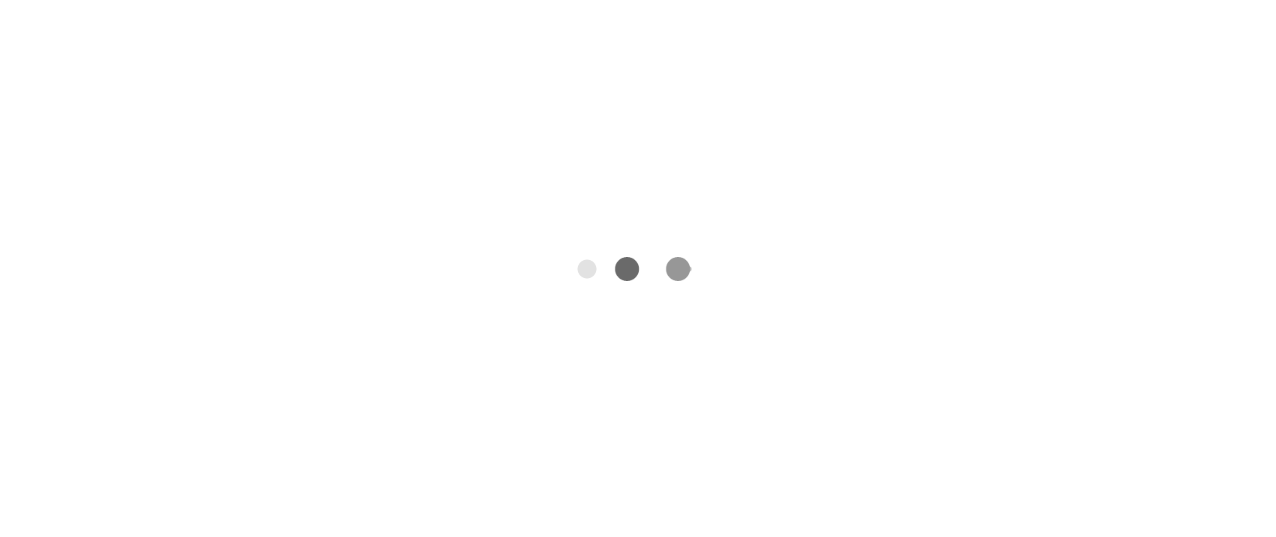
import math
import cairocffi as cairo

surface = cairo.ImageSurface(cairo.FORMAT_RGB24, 1276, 537)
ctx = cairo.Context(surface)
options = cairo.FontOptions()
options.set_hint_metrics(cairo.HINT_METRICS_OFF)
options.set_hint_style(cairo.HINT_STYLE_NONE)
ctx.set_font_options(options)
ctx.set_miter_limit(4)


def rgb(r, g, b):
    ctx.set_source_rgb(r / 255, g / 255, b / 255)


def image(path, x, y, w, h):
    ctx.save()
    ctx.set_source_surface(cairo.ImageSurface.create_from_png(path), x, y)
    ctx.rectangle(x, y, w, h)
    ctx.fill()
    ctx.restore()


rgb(255, 255, 255)
ctx.paint()
image('image0.png', 577, 257, 115, 24)
surface.write_to_png('render.png')
